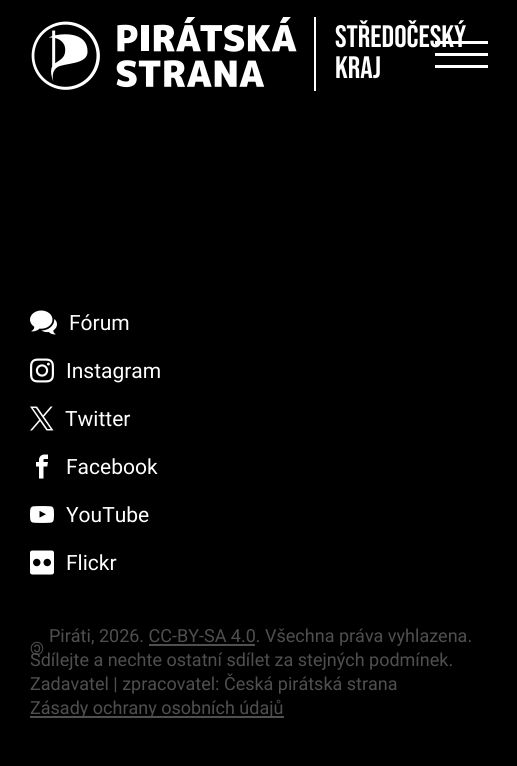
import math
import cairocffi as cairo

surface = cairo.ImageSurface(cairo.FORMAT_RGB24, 517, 766)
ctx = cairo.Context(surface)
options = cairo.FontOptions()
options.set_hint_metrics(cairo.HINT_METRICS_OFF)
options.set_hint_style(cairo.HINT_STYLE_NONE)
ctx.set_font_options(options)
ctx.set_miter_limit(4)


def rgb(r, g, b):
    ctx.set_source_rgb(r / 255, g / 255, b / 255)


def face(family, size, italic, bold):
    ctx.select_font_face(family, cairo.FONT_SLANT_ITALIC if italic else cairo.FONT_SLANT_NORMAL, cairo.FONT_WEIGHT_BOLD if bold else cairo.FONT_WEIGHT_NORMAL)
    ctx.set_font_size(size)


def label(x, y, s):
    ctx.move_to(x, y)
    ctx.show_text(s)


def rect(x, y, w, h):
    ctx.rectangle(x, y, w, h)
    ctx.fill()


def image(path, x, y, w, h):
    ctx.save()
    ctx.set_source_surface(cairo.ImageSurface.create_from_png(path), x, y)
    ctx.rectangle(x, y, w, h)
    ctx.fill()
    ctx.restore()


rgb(0, 0, 0)
ctx.paint()
image('image0.png', 31, 17, 285, 74)
face('Bebas Neue', 31, 0, 0)
rgb(255, 255, 255)
label(335, 47, 'Středočeský')
label(335, 78, 'kraj')
rect(435, 41, 53, 3)
rect(435, 53, 53, 3)
rect(435, 65, 53, 3)
image('image1.png', 30, 310, 27, 25)
face('Roboto', 21, 0, 0)
label(69, 330, 'Fórum')
image('image2.png', 30, 358, 24, 25)
label(66, 378, 'Instagram')
image('image3.png', 30, 406, 24, 25)
label(65, 426, 'Twitter')
image('image4.png', 36, 454, 12, 25)
label(66, 474, 'Facebook')
image('image5.png', 30, 506, 24, 17)
label(66, 522, 'YouTube')
image('image6.png', 30, 550, 24, 25)
label(66, 570, 'Flickr')
face('Roboto', 18, 0, 0)
rgb(79, 79, 79)
label(49, 642, 'Piráti, 2026. CC-BY-SA 4.0. Všechna práva vyhlazena.')
ctx.save()
ctx.translate(44, 642)
ctx.rotate(180 * math.pi / 180)
label(0, 0, '©')
ctx.restore()
rect(149, 644, 106, 2)
label(30, 666, 'Sdílejte a nechte ostatní sdílet za stejných podmínek.')
label(30, 690, 'Zadavatel | zpracovatel: Česká pirátská strana')
rect(30, 716, 254, 2)
label(30, 714, 'Zásady ochrany osobních údajů')
surface.write_to_png('render.png')
